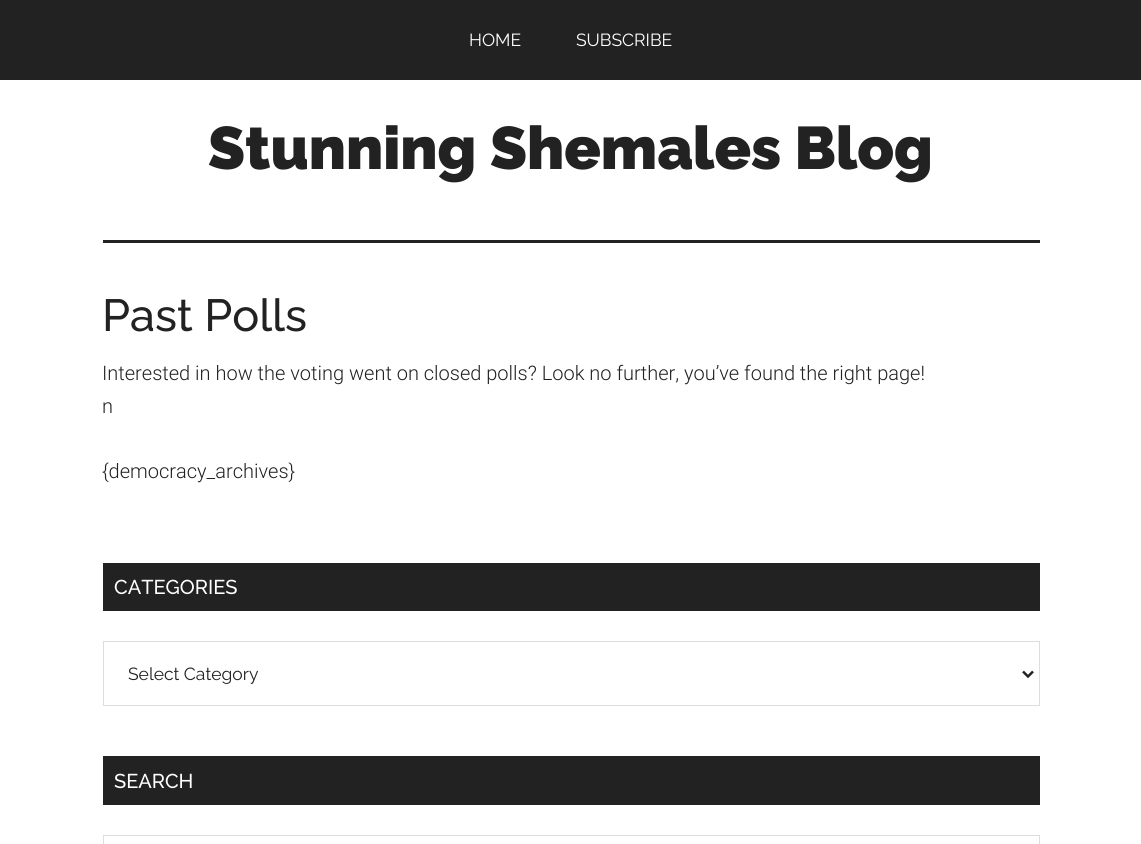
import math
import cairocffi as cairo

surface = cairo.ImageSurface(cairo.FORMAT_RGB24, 1141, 844)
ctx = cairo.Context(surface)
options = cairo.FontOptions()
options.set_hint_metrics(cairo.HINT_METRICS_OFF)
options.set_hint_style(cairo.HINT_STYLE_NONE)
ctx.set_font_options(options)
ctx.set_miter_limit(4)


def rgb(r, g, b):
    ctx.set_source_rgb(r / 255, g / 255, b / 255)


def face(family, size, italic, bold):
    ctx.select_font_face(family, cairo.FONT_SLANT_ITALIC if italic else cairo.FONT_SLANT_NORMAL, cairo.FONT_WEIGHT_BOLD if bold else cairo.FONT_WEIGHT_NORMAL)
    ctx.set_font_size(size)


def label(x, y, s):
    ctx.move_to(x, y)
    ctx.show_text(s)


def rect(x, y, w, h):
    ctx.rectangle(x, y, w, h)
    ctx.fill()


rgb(255, 255, 255)
ctx.paint()
rgb(34, 34, 34)
rect(0, 0, 1141, 80)
face('Raleway', 17.5, 0, 0)
rgb(255, 255, 255)
label(469, 46, 'HOME')
label(576, 46, 'SUBSCRIBE')
rgb(34, 34, 34)
rect(103, 240, 937, 3)
face('Raleway Black', 60, 0, 0)
label(208, 169, 'Stunning Shemales Blog')
face('Raleway Medium', 45, 0, 0)
label(102, 331, 'Past Polls')
face('Roboto Light', 20, 0, 0)
label(102, 380, 'Interested in how the voting went on closed polls? Look no further, you’ve found the right page!')
label(102, 413, 'n')
label(102, 478, '{democracy_archives}')
rect(103, 563, 937, 48)
face('Raleway Medium', 20, 0, 0)
rgb(255, 255, 255)
label(114, 594, 'CATEGORIES')
ctx.rectangle(103.5, 641.5, 936, 64)
rgb(221, 221, 221)
ctx.set_line_width(1)
ctx.stroke()
ctx.new_path()
ctx.move_to(1023, 671.5)
ctx.line_to(1028, 676.5)
ctx.line_to(1033, 671.5)
rgb(34, 34, 34)
ctx.set_line_width(2.5)
ctx.stroke()
face('Raleway', 17.5, 0, 0)
label(128, 680, 'Select Category')
rect(103, 756, 937, 49)
face('Raleway Medium', 20, 0, 0)
rgb(255, 255, 255)
label(114, 788, 'SEARCH')
ctx.rectangle(103.5, 835.5, 936, 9)
rgb(221, 221, 221)
ctx.set_line_width(1)
ctx.stroke()
surface.write_to_png('render.png')
